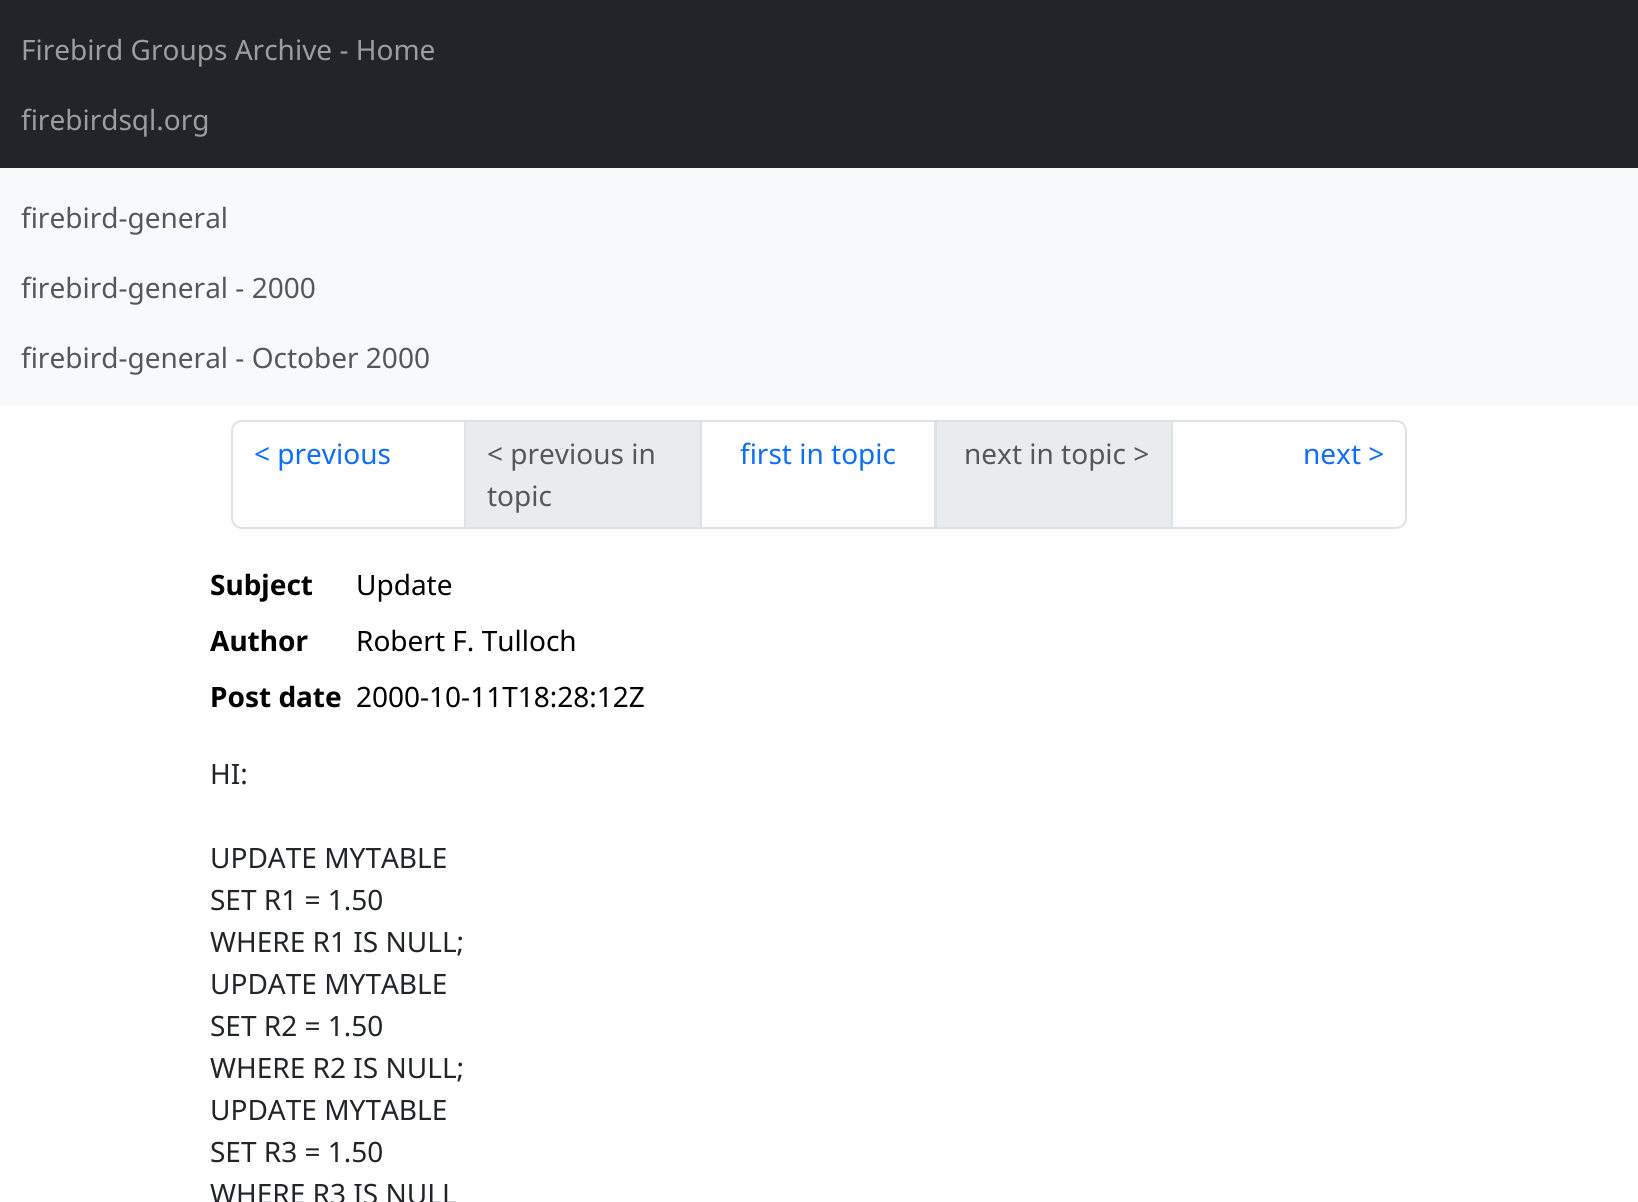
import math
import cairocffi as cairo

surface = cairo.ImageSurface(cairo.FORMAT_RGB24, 1638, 1202)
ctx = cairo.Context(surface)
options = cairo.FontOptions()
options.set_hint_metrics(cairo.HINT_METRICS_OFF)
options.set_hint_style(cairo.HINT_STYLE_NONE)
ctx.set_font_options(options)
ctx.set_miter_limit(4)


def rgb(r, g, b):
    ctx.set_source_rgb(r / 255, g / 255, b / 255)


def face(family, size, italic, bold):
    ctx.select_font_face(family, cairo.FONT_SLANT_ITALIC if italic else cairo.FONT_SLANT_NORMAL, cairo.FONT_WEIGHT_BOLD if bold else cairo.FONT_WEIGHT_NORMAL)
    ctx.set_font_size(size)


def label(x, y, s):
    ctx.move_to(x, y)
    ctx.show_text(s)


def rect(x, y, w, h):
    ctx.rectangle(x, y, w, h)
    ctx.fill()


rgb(255, 255, 255)
ctx.paint()
rgb(33, 37, 41)
rect(0, 0, 1638, 168)
face('Noto Sans', 28, 0, 0)
rgb(155, 157, 159)
label(21, 60, 'Firebird Groups Archive - Home')
label(21, 130, 'firebirdsql.org')
rgb(248, 249, 250)
rect(0, 168, 1638, 238)
rgb(87, 87, 88)
label(21, 228, 'firebird-general')
label(21, 298, 'firebird-general - 2000')
label(21, 368, 'firebird-general - October 2000')
ctx.new_path()
ctx.move_to(242, 421)
ctx.line_to(465, 421)
ctx.line_to(465, 528)
ctx.line_to(242, 528)
ctx.curve_to(236.5, 528, 232, 523.5, 232, 518)
ctx.line_to(232, 431)
ctx.curve_to(232, 425.5, 236.5, 421, 242, 421)
ctx.close_path()
rgb(222, 226, 230)
ctx.stroke()
rgb(13, 110, 253)
label(254, 464, '< previous')
rgb(233, 236, 239)
ctx.rectangle(465, 421, 236, 107)
ctx.fill_preserve()
rgb(222, 226, 230)
ctx.stroke()
rgb(87, 87, 88)
label(487, 464, '< previous in')
label(487, 506, 'topic')
ctx.rectangle(701, 421, 234, 107)
rgb(222, 226, 230)
ctx.stroke()
rgb(13, 110, 253)
label(740, 464, 'first in topic')
rgb(233, 236, 239)
ctx.rectangle(936, 421, 236, 107)
ctx.fill_preserve()
rgb(222, 226, 230)
ctx.stroke()
rgb(87, 87, 88)
label(964, 464, 'next in topic >')
rgb(255, 255, 255)
ctx.new_path()
ctx.move_to(1172, 421)
ctx.line_to(1396, 421)
ctx.curve_to(1401.5, 421, 1406, 425.5, 1406, 431)
ctx.line_to(1406, 518)
ctx.curve_to(1406, 523.5, 1401.5, 528, 1396, 528)
ctx.line_to(1172, 528)
ctx.close_path()
ctx.fill_preserve()
rgb(222, 226, 230)
ctx.stroke()
rgb(13, 110, 253)
label(1303, 464, 'next >')
face('Noto Sans', 28, 0, 1)
rgb(0, 0, 0)
label(210, 595, 'Subject')
face('Noto Sans', 28, 0, 0)
label(356, 595, 'Update')
face('Noto Sans', 28, 0, 1)
label(210, 651, 'Author')
face('Noto Sans', 28, 0, 0)
label(356, 651, 'Robert F. Tulloch')
face('Noto Sans', 28, 0, 1)
label(210, 707, 'Post date')
face('Noto Sans', 28, 0, 0)
label(356, 707, '2000-10-11T18:28:12Z')
rgb(33, 37, 41)
label(210, 784, 'HI:')
label(210, 868, 'UPDATE MYTABLE')
label(210, 910, 'SET R1 = 1.50')
label(210, 952, 'WHERE R1 IS NULL;')
label(210, 994, 'UPDATE MYTABLE')
label(210, 1036, 'SET R2 = 1.50')
label(210, 1078, 'WHERE R2 IS NULL;')
label(210, 1120, 'UPDATE MYTABLE')
label(210, 1162, 'SET R3 = 1.50')
label(210, 1204, 'WHERE R3 IS NULL')
surface.write_to_png('render.png')
